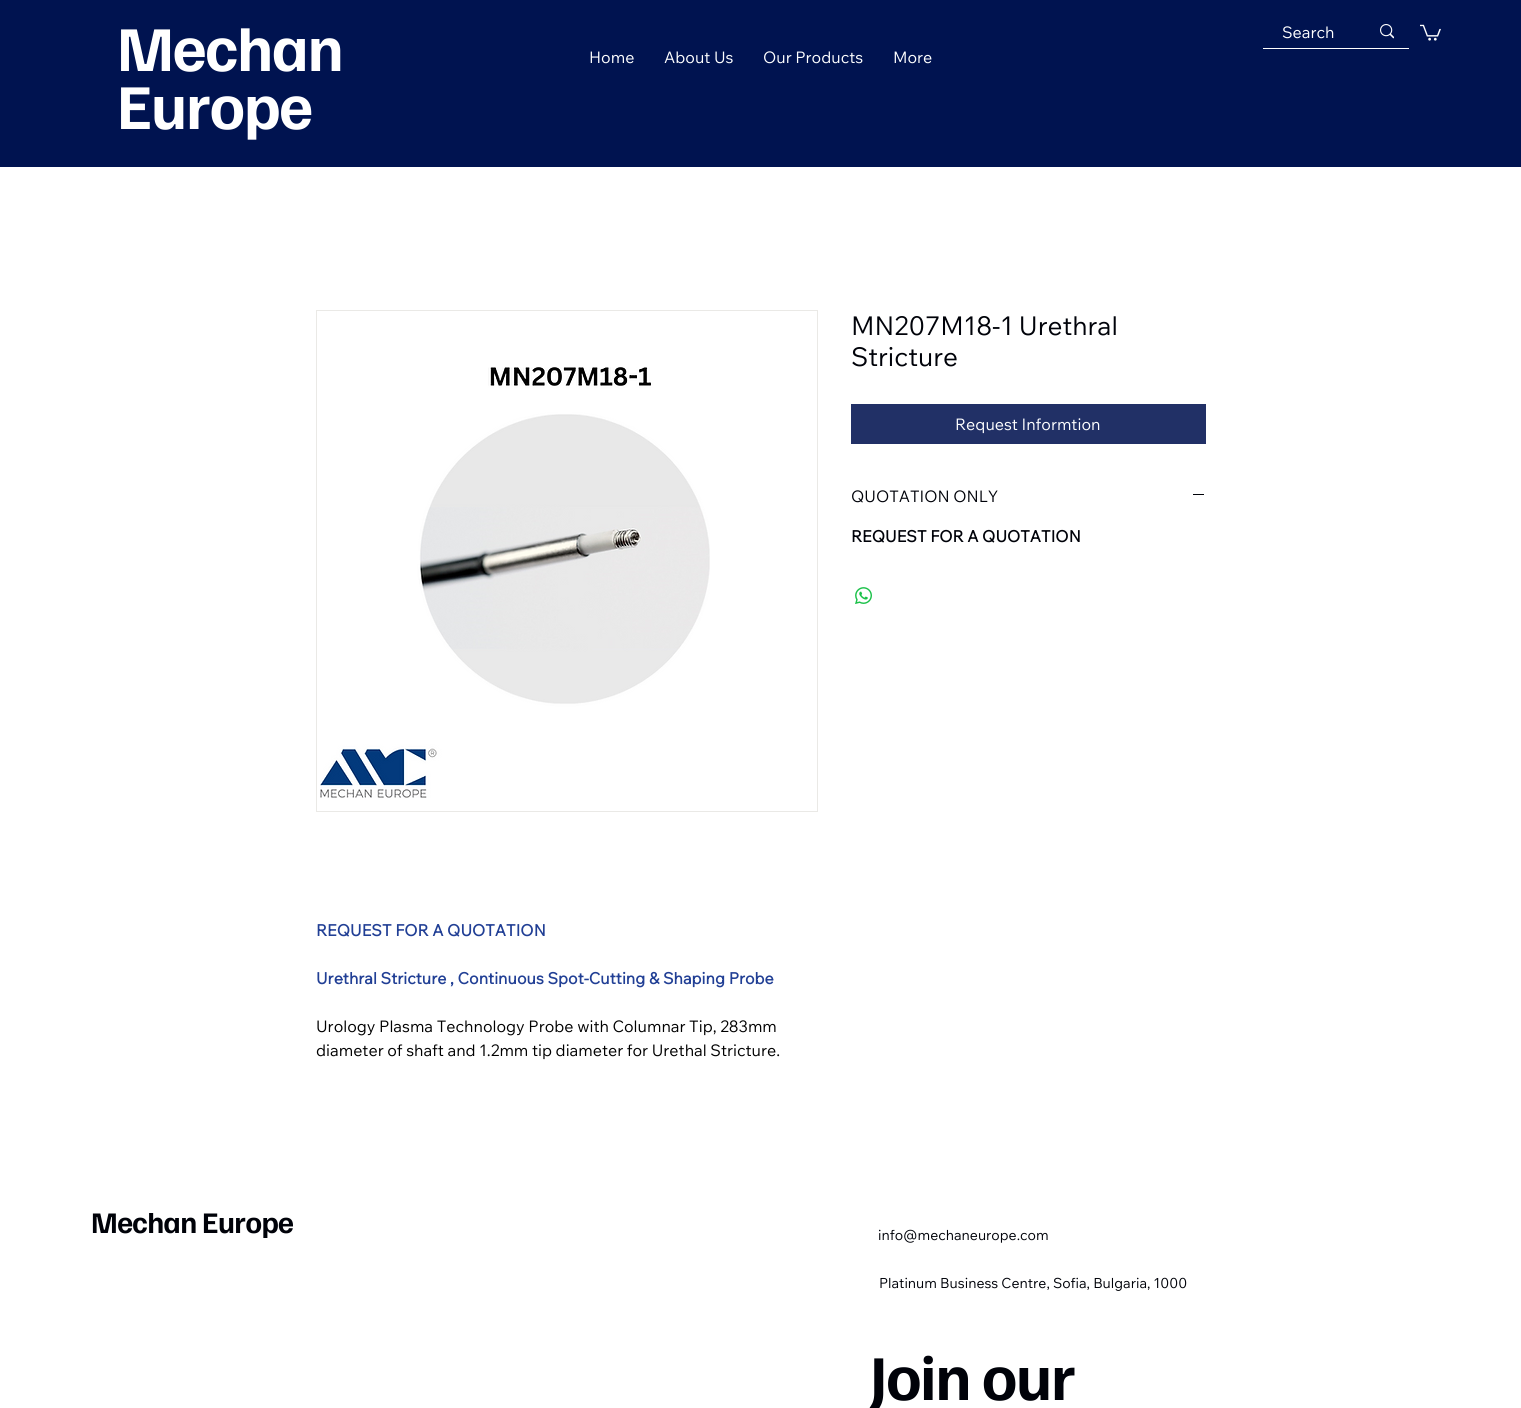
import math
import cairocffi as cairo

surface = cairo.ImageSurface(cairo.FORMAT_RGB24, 1521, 1408)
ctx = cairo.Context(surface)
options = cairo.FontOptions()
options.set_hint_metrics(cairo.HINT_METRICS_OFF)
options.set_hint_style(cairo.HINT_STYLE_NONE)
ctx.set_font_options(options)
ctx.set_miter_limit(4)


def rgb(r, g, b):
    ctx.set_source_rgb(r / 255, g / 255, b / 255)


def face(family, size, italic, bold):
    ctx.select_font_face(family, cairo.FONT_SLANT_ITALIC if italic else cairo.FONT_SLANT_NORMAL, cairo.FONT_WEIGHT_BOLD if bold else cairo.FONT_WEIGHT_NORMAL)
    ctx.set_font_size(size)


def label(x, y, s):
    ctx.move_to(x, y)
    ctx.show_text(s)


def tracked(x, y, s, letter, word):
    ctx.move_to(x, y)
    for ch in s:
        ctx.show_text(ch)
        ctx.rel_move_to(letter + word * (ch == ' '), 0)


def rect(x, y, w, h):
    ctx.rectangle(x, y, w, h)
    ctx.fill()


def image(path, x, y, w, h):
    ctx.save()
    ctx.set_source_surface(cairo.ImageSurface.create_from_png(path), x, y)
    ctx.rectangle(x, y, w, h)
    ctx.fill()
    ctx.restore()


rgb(255, 255, 255)
ctx.paint()
rgb(0, 19, 80)
rect(0, 0, 1521, 167)
face('Familjen Grotesk', 64, 0, 1)
rgb(255, 255, 255)
tracked(117, 71, 'Mechan', -1.25, 0)
tracked(117, 129, 'Europe', -1.25, 0)
face('Wix Madefor Text', 16, 0, 0)
label(589, 63, 'Home')
label(664, 63, 'About Us')
label(763, 63, 'Our Products')
label(893, 63, 'More')
rect(1263, 48, 146, 1)
label(1282, 38, 'Search')
image('image0.png', 1380, 24, 14, 15)
image('image1.png', 1420, 24, 21, 17)
face('Wix Madefor Text', 26, 0, 0)
rgb(0, 2, 9)
label(851, 335, 'MN207M18-1 Urethral')
label(851, 366, 'Stricture')
rgb(33, 48, 102)
rect(851, 404, 355, 40)
face('Wix Madefor Text', 16, 0, 0)
rgb(255, 255, 255)
label(955, 430, 'Request Informtion')
rgb(0, 2, 9)
label(851, 502, 'QUOTATION ONLY')
rect(1193, 494, 11, 1)
face('Wix Madefor Text', 16, 0, 1)
label(851, 542, 'REQUEST FOR A QUOTATION')
image('image2.png', 855, 587, 17, 17)
ctx.rectangle(316.5, 310.5, 501, 501)
rgb(234, 233, 230)
ctx.set_line_width(1)
ctx.stroke()
image('image3.png', 320, 367, 390, 431)
rgb(33, 63, 149)
label(316, 936, 'REQUEST FOR A QUOTATION')
label(316, 984, 'Urethral Stricture , Continuous Spot-Cutting & Shaping Probe')
face('Wix Madefor Text', 16, 0, 0)
rgb(0, 0, 0)
label(316, 1032, 'Urology Plasma Technology Probe with Columnar Tip, 283mm')
label(316, 1056, 'diameter of shaft and 1.2mm tip diameter for Urethal Stricture.')
face('Familjen Grotesk', 30, 0, 1)
rgb(0, 2, 9)
tracked(91, 1233, 'Mechan Europe', -0.6, 0)
face('Wix Madefor Text', 14, 0, 0)
label(878, 1240, 'info@mechaneurope.com')
label(879, 1288, 'Platinum Business Centre, Sofia, Bulgaria, 1000')
face('Familjen Grotesk', 64, 0, 1)
tracked(870, 1400, 'Join our', -1.25, 0)
surface.write_to_png('render.png')
